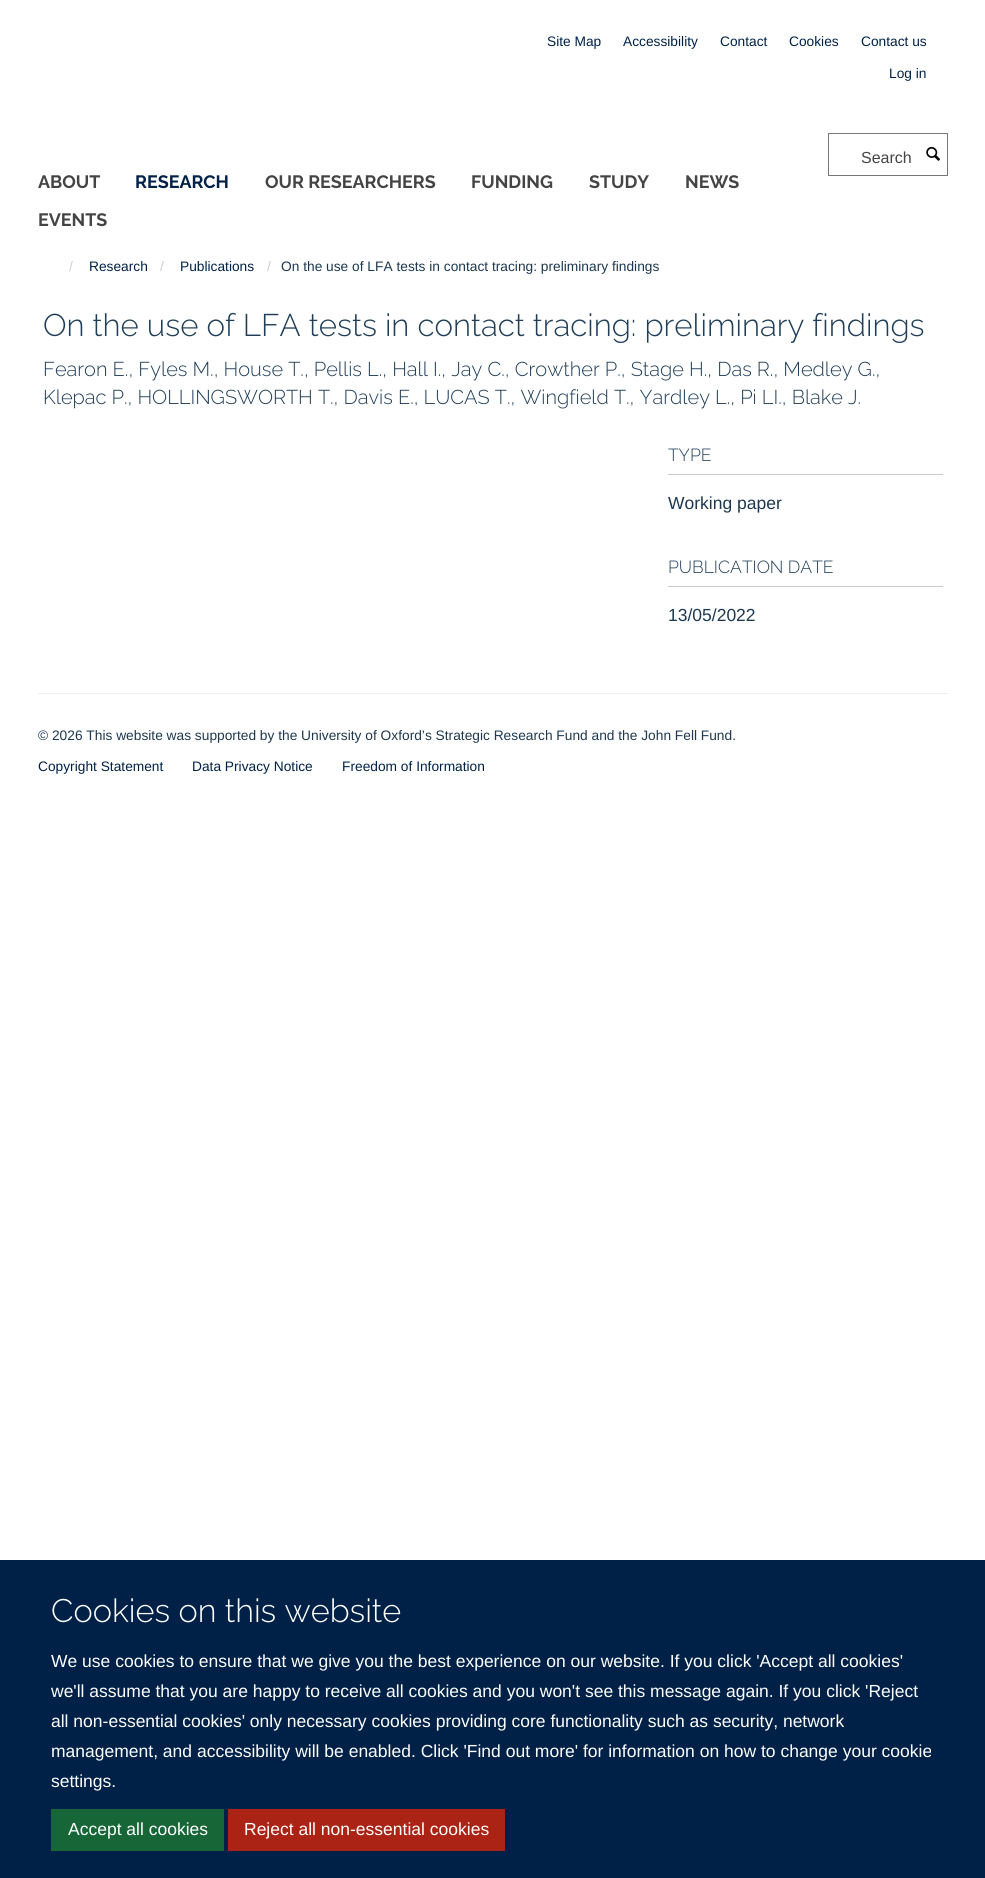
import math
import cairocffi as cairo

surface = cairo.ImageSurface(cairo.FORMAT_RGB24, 985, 1878)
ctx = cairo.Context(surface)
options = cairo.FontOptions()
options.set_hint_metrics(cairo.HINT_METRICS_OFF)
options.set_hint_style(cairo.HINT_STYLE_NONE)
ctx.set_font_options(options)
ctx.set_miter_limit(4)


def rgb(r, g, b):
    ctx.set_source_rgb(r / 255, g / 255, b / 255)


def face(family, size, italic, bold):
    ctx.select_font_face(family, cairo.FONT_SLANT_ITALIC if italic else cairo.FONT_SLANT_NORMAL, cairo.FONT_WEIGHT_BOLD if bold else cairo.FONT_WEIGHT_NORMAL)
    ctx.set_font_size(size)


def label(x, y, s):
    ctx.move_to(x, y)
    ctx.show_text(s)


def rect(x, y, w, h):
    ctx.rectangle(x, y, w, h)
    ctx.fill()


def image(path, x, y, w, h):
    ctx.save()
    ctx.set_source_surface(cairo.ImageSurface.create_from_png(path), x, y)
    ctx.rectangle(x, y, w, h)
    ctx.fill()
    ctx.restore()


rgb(255, 255, 255)
ctx.paint()
face('Liberation Sans', 13.75, 0, 0)
rgb(0, 33, 71)
label(547, 46, 'Site Map')
label(623, 46, 'Accessibility')
label(720, 46, 'Contact')
label(789, 46, 'Cookies')
label(861, 46, 'Contact us')
label(889, 78, 'Log in')
ctx.rectangle(828.5, 133.5, 119, 42)
rgb(119, 119, 119)
ctx.set_line_width(1)
ctx.stroke()
face('Liberation Sans', 16, 0, 0)
rgb(68, 68, 68)
label(861, 163, 'Search')
image('image0.png', 926, 146, 14, 15)
face('Raleway', 17.9, 0, 1)
label(38, 188, 'ABOUT')
rgb(0, 33, 71)
label(135, 188, 'RESEARCH')
rgb(68, 68, 68)
label(265, 188, 'OUR RESEARCHERS')
label(471, 188, 'FUNDING')
label(589, 188, 'STUDY')
label(685, 188, 'NEWS')
label(38, 226, 'EVENTS')
face('Liberation Sans', 13.75, 0, 0)
rgb(204, 204, 204)
label(69, 271, '/')
rgb(0, 33, 71)
label(89, 271, 'Research')
rgb(204, 204, 204)
label(160, 271, '/')
rgb(0, 33, 71)
label(180, 271, 'Publications')
rgb(204, 204, 204)
label(267, 271, '/')
rgb(29, 56, 80)
label(281, 271, 'On the use of LFA tests in contact tracing: preliminary findings')
face('Raleway Light', 31.25, 0, 0)
rgb(32, 62, 88)
label(43, 336, 'On the use of LFA tests in contact tracing: preliminary findings')
face('Raleway Light', 20, 0, 0)
label(43, 376, 'Fearon E., Fyles M., House T., Pellis L., Hall I., Jay C., Crowther P., Stage H., Das R., Medley G.,')
label(43, 404, 'Klepac P., HOLLINGSWORTH T., Davis E., LUCAS T., Wingfield T., Yardley L., Pi LI., Blake J.')
rgb(198, 202, 207)
rect(668, 474, 275, 1)
face('Raleway Light', 17.5, 0, 0)
rgb(32, 62, 88)
label(668, 461, 'TYPE')
face('Liberation Sans', 17.5, 0, 0)
rgb(29, 56, 80)
label(668, 509, 'Working paper')
rgb(198, 202, 207)
rect(668, 586, 275, 1)
face('Raleway Light', 17.5, 0, 0)
rgb(32, 62, 88)
label(668, 573, 'PUBLICATION DATE')
face('Liberation Sans', 17.5, 0, 0)
rgb(29, 56, 80)
label(668, 621, '13/05/2022')
rgb(238, 238, 238)
rect(38, 693, 910, 1)
face('Liberation Sans', 13.75, 0, 0)
rgb(29, 56, 80)
label(38, 740, '© 2026 This website was supported by the University of Oxford’s Strategic Research Fund and the John Fell Fund.')
rgb(0, 33, 71)
label(38, 771, 'Copyright Statement')
label(192, 771, 'Data Privacy Notice')
label(342, 771, 'Freedom of Information')
rect(0, 1560, 985, 318)
face('Raleway Light', 32.5, 0, 0)
rgb(255, 255, 255)
label(51, 1622, 'Cookies on this website')
face('Liberation Sans', 17.5, 0, 0)
label(51, 1667, 'We use cookies to ensure that we give you the best experience on our website. If you click \'Accept all cookies\'')
label(51, 1697, 'we\'ll assume that you are happy to receive all cookies and you won\'t see this message again. If you click \'Reject')
label(51, 1727, 'all non-essential cookies\' only necessary cookies providing core functionality such as security, network')
label(51, 1757, 'management, and accessibility will be enabled. Click \'Find out more\' for information on how to change your cookie')
label(51, 1787, 'settings.')
rgb(23, 102, 56)
rect(51, 1809, 173, 42)
rgb(255, 255, 255)
label(68, 1835, 'Accept all cookies')
rgb(171, 35, 21)
rect(228, 1809, 277, 42)
rgb(255, 255, 255)
label(244, 1835, 'Reject all non-essential cookies')
surface.write_to_png('render.png')
